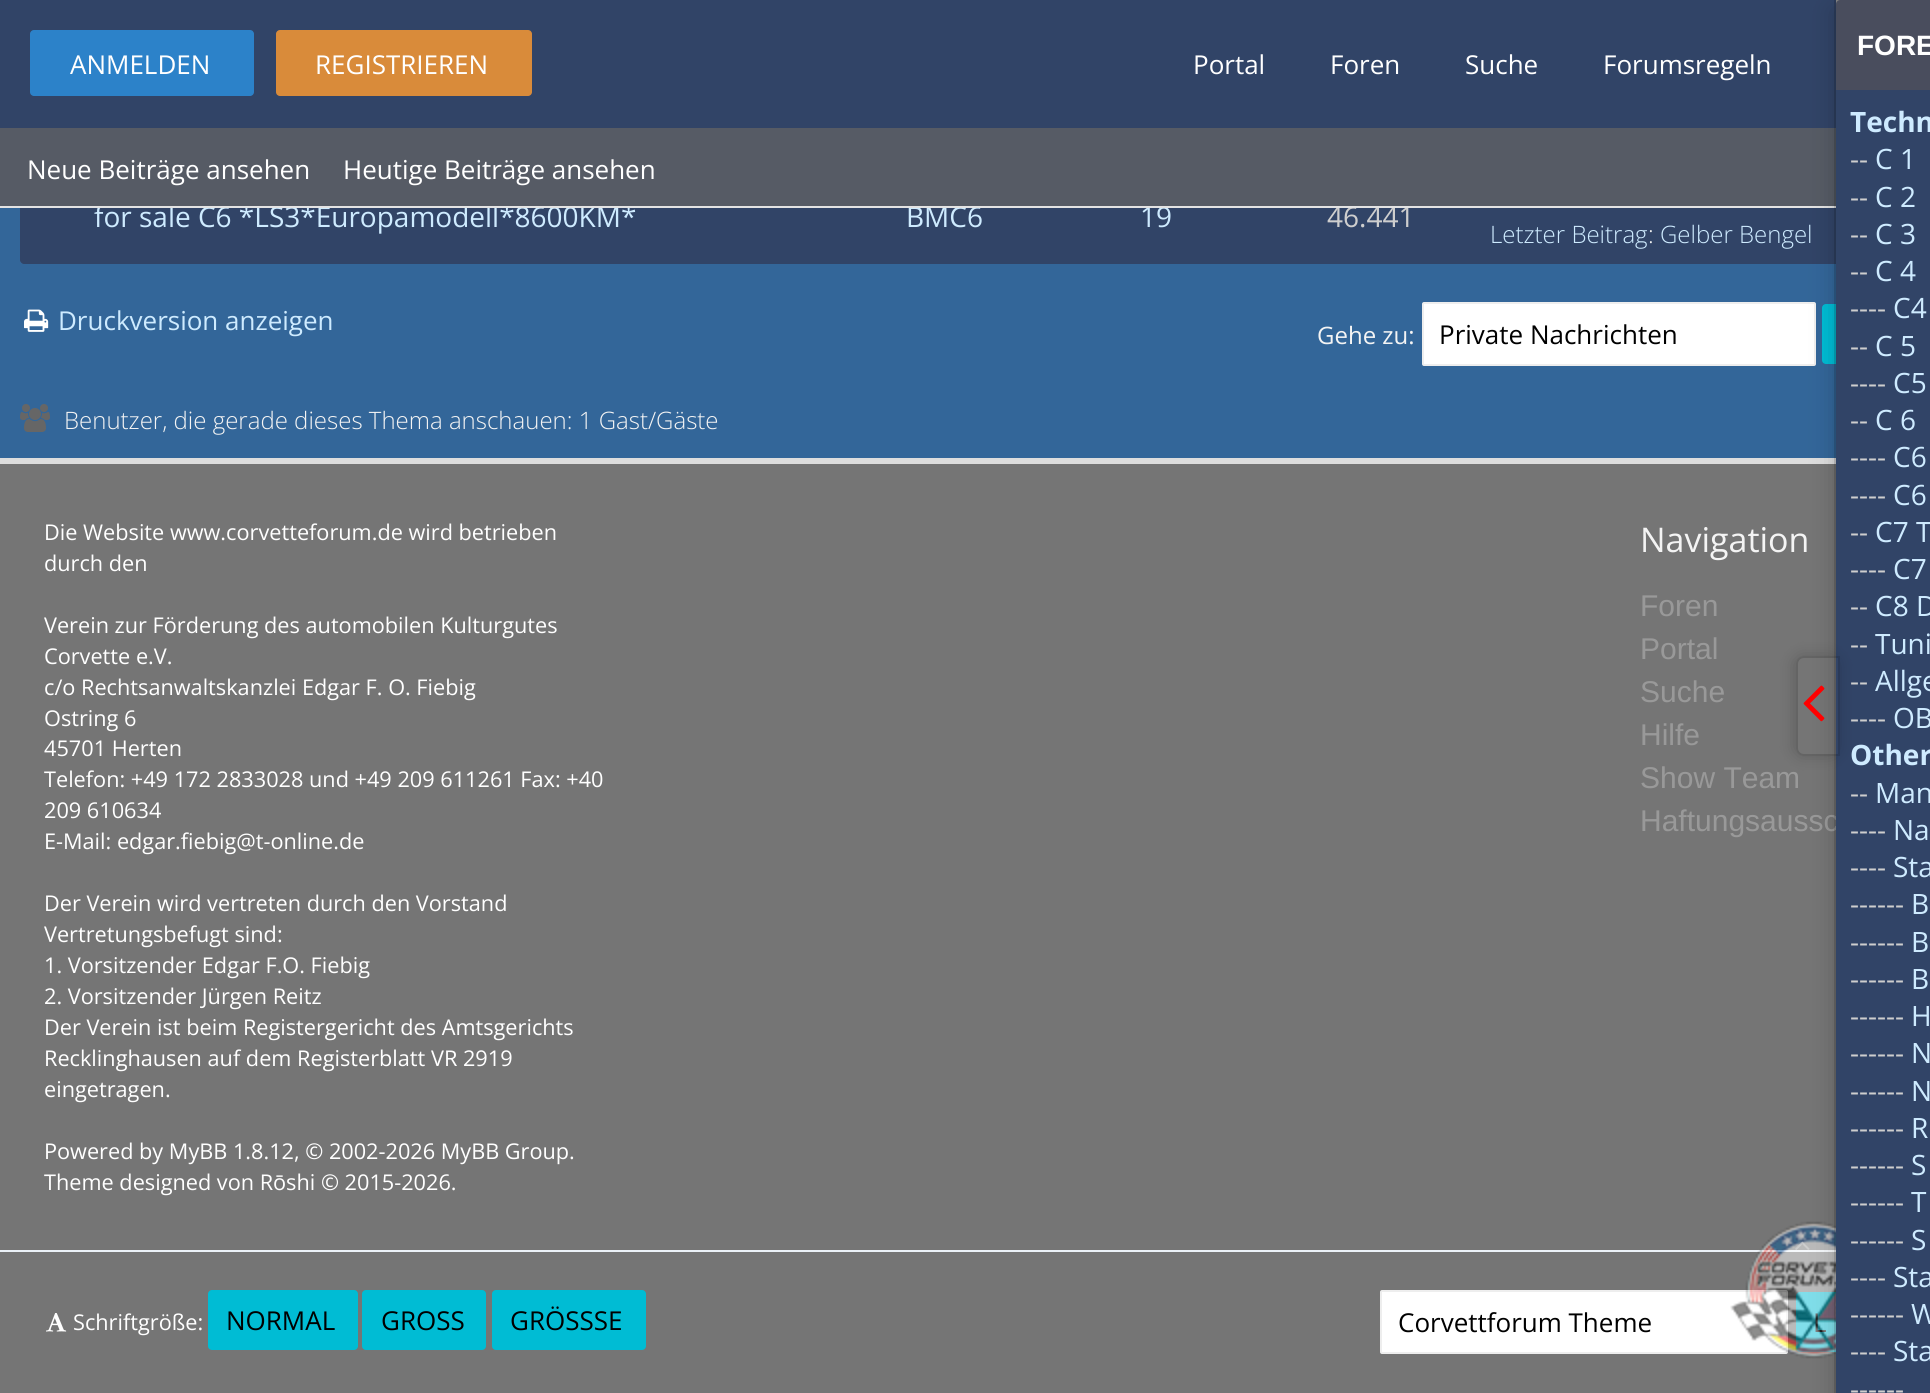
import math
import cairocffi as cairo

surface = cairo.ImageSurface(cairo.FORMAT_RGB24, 1930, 1393)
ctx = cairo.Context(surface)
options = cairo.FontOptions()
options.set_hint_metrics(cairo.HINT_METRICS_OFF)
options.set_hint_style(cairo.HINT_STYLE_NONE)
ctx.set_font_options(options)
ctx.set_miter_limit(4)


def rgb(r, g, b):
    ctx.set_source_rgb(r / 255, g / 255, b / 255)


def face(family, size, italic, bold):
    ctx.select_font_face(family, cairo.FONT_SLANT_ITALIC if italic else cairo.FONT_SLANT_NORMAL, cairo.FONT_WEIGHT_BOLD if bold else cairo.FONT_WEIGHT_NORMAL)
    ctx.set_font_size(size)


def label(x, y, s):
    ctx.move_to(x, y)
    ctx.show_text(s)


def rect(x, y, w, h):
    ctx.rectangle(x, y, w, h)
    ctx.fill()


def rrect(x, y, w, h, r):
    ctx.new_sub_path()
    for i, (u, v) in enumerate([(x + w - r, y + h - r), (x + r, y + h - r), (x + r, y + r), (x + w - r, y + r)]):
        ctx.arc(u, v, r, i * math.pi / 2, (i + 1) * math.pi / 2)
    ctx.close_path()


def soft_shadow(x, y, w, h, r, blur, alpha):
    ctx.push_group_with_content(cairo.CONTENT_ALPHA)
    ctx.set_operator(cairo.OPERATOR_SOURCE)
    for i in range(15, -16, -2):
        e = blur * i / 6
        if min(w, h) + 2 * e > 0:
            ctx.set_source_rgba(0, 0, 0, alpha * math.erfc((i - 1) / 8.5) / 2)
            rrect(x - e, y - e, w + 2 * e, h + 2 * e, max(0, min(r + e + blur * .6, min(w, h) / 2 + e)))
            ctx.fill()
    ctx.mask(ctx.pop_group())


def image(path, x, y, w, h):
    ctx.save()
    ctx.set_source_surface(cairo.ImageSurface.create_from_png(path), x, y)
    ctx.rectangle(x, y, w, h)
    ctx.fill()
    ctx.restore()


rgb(51, 102, 153)
ctx.paint()
rgb(49, 68, 103)
rect(0, 0, 1836, 128)
rgb(44, 130, 201)
rrect(30, 30, 224, 66, 4)
ctx.fill()
face('Open Sans', 26, 0, 0)
rgb(255, 255, 255)
label(70, 74, 'ANMELDEN')
rgb(217, 139, 58)
rrect(276, 30, 256, 66, 4)
ctx.fill()
rgb(255, 255, 255)
label(315, 74, 'REGISTRIEREN')
label(1193, 74, 'Portal')
label(1330, 74, 'Foren')
label(1465, 74, 'Suche')
label(1603, 74, 'Forumsregeln')
rgb(49, 68, 103)
ctx.new_path()
ctx.move_to(20, 168)
ctx.line_to(80, 168)
ctx.line_to(80, 264)
ctx.line_to(24, 264)
ctx.curve_to(22, 264, 20, 262, 20, 260)
ctx.close_path()
ctx.fill()
rect(80, 208, 1756, 56)
face('Open Sans', 28, 0, 0)
rgb(206, 235, 255)
label(94, 227, 'for sale C6 *LS3*Europamodell*8600KM*')
rgb(86, 91, 101)
rect(0, 128, 1836, 78)
rgb(206, 235, 255)
label(906, 227, 'BMC6')
label(1140, 227, '19')
rgb(206, 206, 206)
label(1327, 227, '46.441')
rgb(227, 227, 227)
rect(0, 206, 1836, 2)
face('Open Sans', 26, 0, 0)
rgb(255, 255, 255)
label(27, 179, 'Neue Beiträge ansehen')
label(343, 179, 'Heutige Beiträge ansehen')
face('Open Sans Light', 24, 0, 0)
rgb(206, 235, 255)
label(1490, 243, 'Letzter Beitrag')
rgb(244, 244, 244)
label(1648, 243, ':')
rgb(206, 235, 255)
label(1660, 243, 'Gelber Bengel')
image('image0.png', 24, 309, 25, 23)
face('Open Sans', 26, 0, 0)
label(58, 330, 'Druckversion anzeigen')
face('Open Sans', 24, 0, 0)
rgb(244, 244, 244)
label(1317, 344, 'Gehe zu:')
rgb(255, 255, 255)
rrect(1423, 303, 392, 62, 1)
ctx.fill_preserve()
rgb(238, 238, 238)
ctx.stroke()
face('Open Sans', 26, 0, 0)
rgb(0, 0, 0)
label(1439, 344, 'Private Nachrichten')
rgb(0, 188, 212)
rrect(1822, 304, 88, 60, 4)
ctx.fill()
image('image1.png', 20, 404, 30, 28)
face('Open Sans Light', 24, 0, 0)
rgb(244, 244, 244)
label(64, 429, 'Benutzer, die gerade dieses Thema anschauen: 1 Gast/Gäste')
rgb(117, 117, 117)
rect(0, 464, 1836, 786)
rgb(221, 221, 221)
rect(0, 458, 1836, 6)
face('Open Sans', 21.7, 0, 0)
rgb(255, 255, 255)
label(44, 540, 'Die Website www.corvetteforum.de wird betrieben')
label(44, 571, 'durch den')
label(44, 633, 'Verein zur Förderung des automobilen Kulturgutes')
label(44, 664, 'Corvette e.V.')
label(44, 695, 'c/o Rechtsanwaltskanzlei Edgar F. O. Fiebig')
label(44, 726, 'Ostring 6')
label(44, 756, '45701 Herten')
label(44, 787, 'Telefon: +49 172 2833028 und +49 209 611261 Fax: +40')
label(44, 818, '209 610634')
label(44, 849, 'E-Mail: edgar.fiebig@t-online.de')
label(44, 911, 'Der Verein wird vertreten durch den Vorstand')
label(44, 942, 'Vertretungsbefugt sind:')
label(44, 973, '1. Vorsitzender Edgar F.O. Fiebig')
label(44, 1004, '2. Vorsitzender Jürgen Reitz')
label(44, 1035, 'Der Verein ist beim Registergericht des Amtsgerichts')
label(44, 1066, 'Recklinghausen auf dem Registerblatt VR 2919')
label(44, 1097, 'eingetragen.')
label(44, 1159, 'Powered by MyBB 1.8.12, © 2002-2026 MyBB Group.')
label(44, 1190, 'Theme designed von Rōshi © 2015-2026.')
face('Open Sans', 34, 0, 0)
rgb(244, 244, 244)
label(1640, 552, 'Navigation')
face('Liberation Sans', 30, 0, 0)
rgb(153, 153, 153)
label(1640, 616, 'Foren')
label(1640, 659, 'Portal')
label(1640, 702, 'Suche')
label(1640, 745, 'Hilfe')
label(1640, 788, 'Show Team')
label(1640, 831, 'Haftungsaussc')
rgb(117, 117, 117)
rect(0, 1252, 1836, 141)
rgb(235, 241, 247)
rect(0, 1250, 1836, 2)
image('image2.png', 46, 1313, 21, 19)
face('Open Sans', 21.7, 0, 0)
rgb(255, 255, 255)
label(73, 1330, 'Schriftgröße:')
rgb(0, 188, 212)
rrect(208, 1290, 150, 60, 4)
ctx.fill()
face('Open Sans', 26, 0, 0)
rgb(0, 0, 0)
label(226, 1330, 'NORMAL')
rgb(0, 188, 212)
rrect(362, 1290, 124, 60, 4)
ctx.fill()
rgb(0, 0, 0)
label(381, 1330, 'GROSS')
rgb(0, 188, 212)
rrect(492, 1290, 154, 60, 4)
ctx.fill()
rgb(0, 0, 0)
label(510, 1330, 'GRÖSSSE')
rgb(255, 255, 255)
rrect(1381, 1291, 406, 62, 1)
ctx.fill_preserve()
rgb(238, 238, 238)
ctx.stroke()
rgb(0, 0, 0)
label(1398, 1332, 'Corvettforum Theme')
rgb(0, 188, 212)
rrect(1796, 1292, 88, 60, 4)
ctx.fill()
rgb(0, 0, 0)
label(1813, 1332, 'L')
image('image3.png', 1730, 1221, 106, 138)
image('image4.png', 1795, 1241, 15, 9)
rgb(0, 0, 0)
soft_shadow(1834, 10, 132, 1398, 0, 12, 0.18)
rgb(128, 128, 128)
rect(1836, 0, 4, 4)
ctx.rectangle(1835, -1, 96, 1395)
ctx.set_source_rgba(0, 0, 0, 0.15)
ctx.stroke()
rgb(49, 68, 103)
rect(1836, 90, 94, 1303)
ctx.save()
ctx.set_fill_rule(cairo.FILL_RULE_EVEN_ODD)
ctx.new_path()
ctx.move_to(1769, 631)
ctx.line_to(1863, 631)
ctx.line_to(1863, 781)
ctx.line_to(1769, 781)
ctx.close_path()
ctx.move_to(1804, 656)
ctx.line_to(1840, 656)
ctx.line_to(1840, 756)
ctx.line_to(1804, 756)
ctx.curve_to(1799.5, 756, 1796, 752.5, 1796, 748)
ctx.line_to(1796, 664)
ctx.curve_to(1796, 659.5, 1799.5, 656, 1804, 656)
ctx.close_path()
ctx.clip()
rgb(0, 0, 0)
soft_shadow(1794, 656, 44, 100, 8, 8, 0.18)
ctx.restore()
ctx.new_path()
ctx.move_to(1804, 657)
ctx.line_to(1839, 657)
ctx.line_to(1839, 755)
ctx.line_to(1804, 755)
ctx.curve_to(1800, 755, 1797, 752, 1797, 748)
ctx.line_to(1797, 664)
ctx.curve_to(1797, 660, 1800, 657, 1804, 657)
ctx.close_path()
ctx.set_source_rgba(0, 0, 0, 0.15)
ctx.stroke()
image('image5.png', 1803, 685, 22, 37)
rgb(73, 77, 93)
ctx.new_path()
ctx.move_to(1840, 0)
ctx.line_to(1930, 0)
ctx.curve_to(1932, 0, 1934, 2, 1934, 4)
ctx.line_to(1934, 90)
ctx.line_to(1836, 90)
ctx.line_to(1836, 4)
ctx.curve_to(1836, 2, 1838, 0, 1840, 0)
ctx.close_path()
ctx.fill()
face('Liberation Sans', 28, 0, 1)
rgb(255, 255, 255)
label(1857, 55, 'FORE')
face('Open Sans', 28, 0, 1)
rgb(206, 235, 255)
label(1850, 132, 'Techn')
face('Open Sans', 28, 0, 0)
rgb(206, 206, 206)
label(1850, 169, '--')
rgb(206, 235, 255)
label(1875, 169, 'C 1')
rgb(206, 206, 206)
label(1850, 207, '--')
rgb(206, 235, 255)
label(1875, 207, 'C 2')
rgb(206, 206, 206)
label(1850, 244, '--')
rgb(206, 235, 255)
label(1875, 244, 'C 3')
rgb(206, 206, 206)
label(1850, 281, '--')
rgb(206, 235, 255)
label(1875, 281, 'C 4')
rgb(206, 206, 206)
label(1850, 318, '----')
rgb(206, 235, 255)
label(1893, 318, 'C4')
rgb(206, 206, 206)
label(1850, 356, '--')
rgb(206, 235, 255)
label(1875, 356, 'C 5')
rgb(206, 206, 206)
label(1850, 393, '----')
rgb(206, 235, 255)
label(1893, 393, 'C5')
rgb(206, 206, 206)
label(1850, 430, '--')
rgb(206, 235, 255)
label(1875, 430, 'C 6')
rgb(206, 206, 206)
label(1850, 467, '----')
rgb(206, 235, 255)
label(1893, 467, 'C6')
rgb(206, 206, 206)
label(1850, 505, '----')
rgb(206, 235, 255)
label(1893, 505, 'C6')
rgb(206, 206, 206)
label(1850, 542, '--')
rgb(206, 235, 255)
label(1875, 542, 'C7 T')
rgb(206, 206, 206)
label(1850, 579, '----')
rgb(206, 235, 255)
label(1893, 579, 'C7')
rgb(206, 206, 206)
label(1850, 616, '--')
rgb(206, 235, 255)
label(1875, 616, 'C8 D')
rgb(206, 206, 206)
label(1850, 654, '--')
rgb(206, 235, 255)
label(1875, 654, 'Tuni')
rgb(206, 206, 206)
label(1850, 691, '--')
rgb(206, 235, 255)
label(1875, 691, 'Allge')
rgb(206, 206, 206)
label(1850, 728, '----')
rgb(206, 235, 255)
label(1893, 728, 'OB')
face('Open Sans', 28, 0, 1)
label(1850, 765, 'Other')
face('Open Sans', 28, 0, 0)
rgb(206, 206, 206)
label(1850, 803, '--')
rgb(206, 235, 255)
label(1875, 803, 'Man')
rgb(206, 206, 206)
label(1850, 840, '----')
rgb(206, 235, 255)
label(1893, 840, 'Na')
rgb(206, 206, 206)
label(1850, 877, '----')
rgb(206, 235, 255)
label(1893, 877, 'Sta')
rgb(206, 206, 206)
label(1850, 914, '------')
rgb(206, 235, 255)
label(1911, 914, 'B')
rgb(206, 206, 206)
label(1850, 952, '------')
rgb(206, 235, 255)
label(1911, 952, 'B')
rgb(206, 206, 206)
label(1850, 989, '------')
rgb(206, 235, 255)
label(1911, 989, 'B')
rgb(206, 206, 206)
label(1850, 1026, '------')
rgb(206, 235, 255)
label(1911, 1026, 'H')
rgb(206, 206, 206)
label(1850, 1063, '------')
rgb(206, 235, 255)
label(1911, 1063, 'N')
rgb(206, 206, 206)
label(1850, 1101, '------')
rgb(206, 235, 255)
label(1911, 1101, 'N')
rgb(206, 206, 206)
label(1850, 1138, '------')
rgb(206, 235, 255)
label(1911, 1138, 'R')
rgb(206, 206, 206)
label(1850, 1175, '------')
rgb(206, 235, 255)
label(1911, 1175, 'S')
rgb(206, 206, 206)
label(1850, 1212, '------')
rgb(206, 235, 255)
label(1911, 1212, 'T')
rgb(206, 206, 206)
label(1850, 1250, '------')
rgb(206, 235, 255)
label(1911, 1250, 'S')
rgb(206, 206, 206)
label(1850, 1287, '----')
rgb(206, 235, 255)
label(1893, 1287, 'Sta')
rgb(206, 206, 206)
label(1850, 1324, '------')
rgb(206, 235, 255)
label(1911, 1324, 'W')
rgb(206, 206, 206)
label(1850, 1361, '----')
rgb(206, 235, 255)
label(1893, 1361, 'Sta')
rgb(206, 206, 206)
label(1850, 1399, '------')
surface.write_to_png('render.png')
